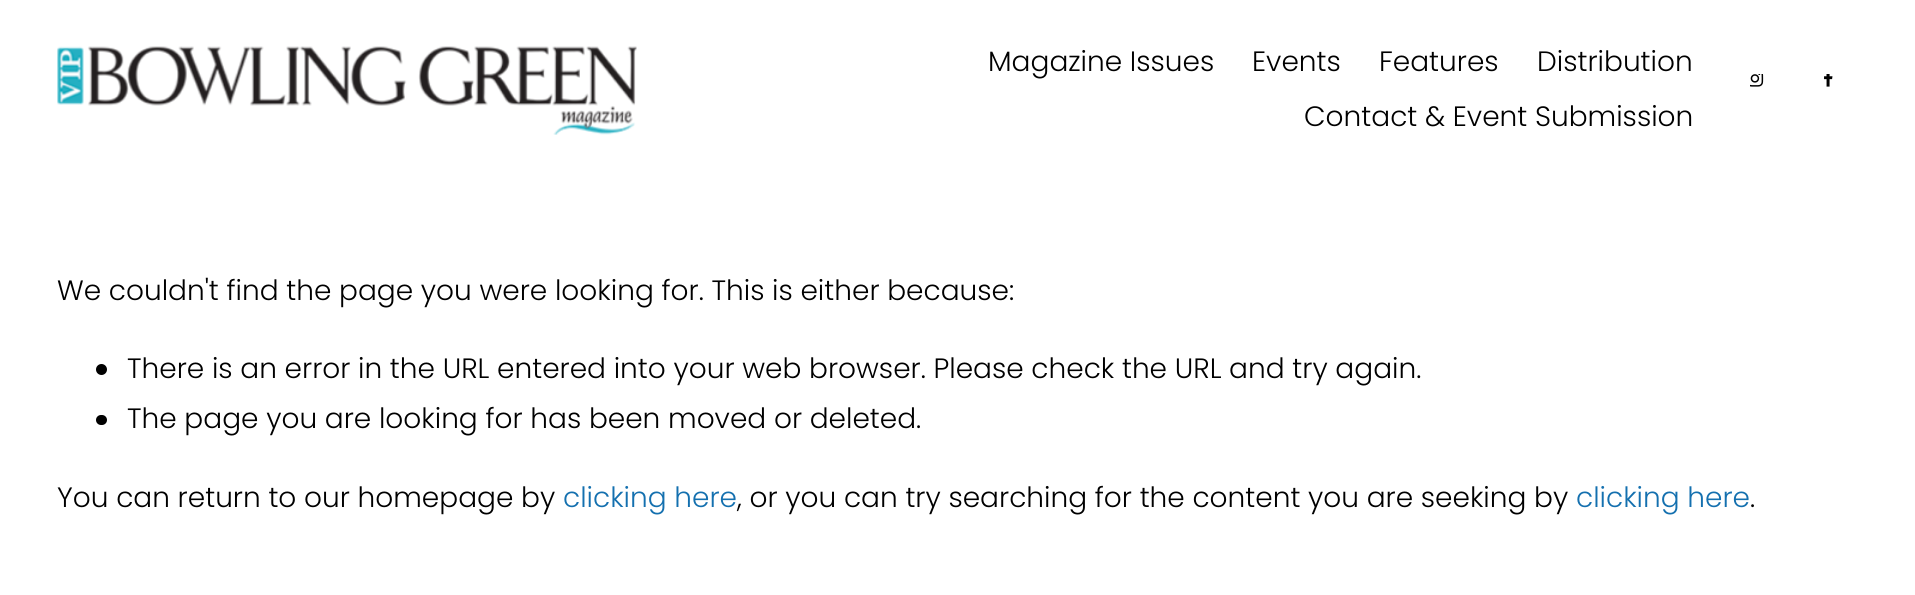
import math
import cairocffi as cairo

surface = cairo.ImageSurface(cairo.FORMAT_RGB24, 1915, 595)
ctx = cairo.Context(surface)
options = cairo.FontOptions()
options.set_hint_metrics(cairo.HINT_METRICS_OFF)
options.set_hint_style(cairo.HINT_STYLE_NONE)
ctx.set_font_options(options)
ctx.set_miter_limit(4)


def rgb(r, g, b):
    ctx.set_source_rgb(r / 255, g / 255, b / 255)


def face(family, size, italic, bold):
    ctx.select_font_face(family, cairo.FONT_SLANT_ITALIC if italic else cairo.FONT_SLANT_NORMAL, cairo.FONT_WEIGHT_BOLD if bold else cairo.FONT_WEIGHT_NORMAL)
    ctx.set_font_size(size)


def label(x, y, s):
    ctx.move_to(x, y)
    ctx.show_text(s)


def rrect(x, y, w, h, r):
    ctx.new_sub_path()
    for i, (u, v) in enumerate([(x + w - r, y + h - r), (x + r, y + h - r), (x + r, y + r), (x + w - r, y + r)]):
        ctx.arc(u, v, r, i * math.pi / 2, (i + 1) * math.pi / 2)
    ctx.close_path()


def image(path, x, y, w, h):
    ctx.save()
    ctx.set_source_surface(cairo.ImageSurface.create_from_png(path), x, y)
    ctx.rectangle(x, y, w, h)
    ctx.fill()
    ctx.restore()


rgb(255, 255, 255)
ctx.paint()
image('image0.png', 57, 46, 580, 89)
face('Poppins Light', 28, 0, 0)
rgb(0, 0, 0)
label(988, 71, 'Magazine Issues')
label(1252, 71, 'Events')
label(1379, 71, 'Features')
label(1537, 71, 'Distribution')
label(1304, 126, 'Contact & Event Submission')
image('image1.png', 1750, 74, 14, 13)
image('image2.png', 1824, 74, 9, 13)
label(57, 300, 'We couldn\'t find the page you were looking for. This is either because:')
ctx.new_path()
ctx.arc(101.5, 369.5, 5.5, 0, 2 * math.pi)
ctx.fill()
label(127, 378, 'There is an error in the URL entered into your web browser. Please check the URL and try again.')
rrect(96, 415, 11, 10, 5)
ctx.fill()
label(127, 428, 'The page you are looking for has been moved or deleted.')
label(57, 507, 'You can return to our homepage by')
rgb(20, 112, 175)
label(563, 507, 'clicking here')
rgb(0, 0, 0)
label(737, 507, ', or you can try searching for the content you are seeking by')
rgb(20, 112, 175)
label(1576, 507, 'clicking here')
rgb(0, 0, 0)
label(1750, 507, '.')
surface.write_to_png('render.png')
